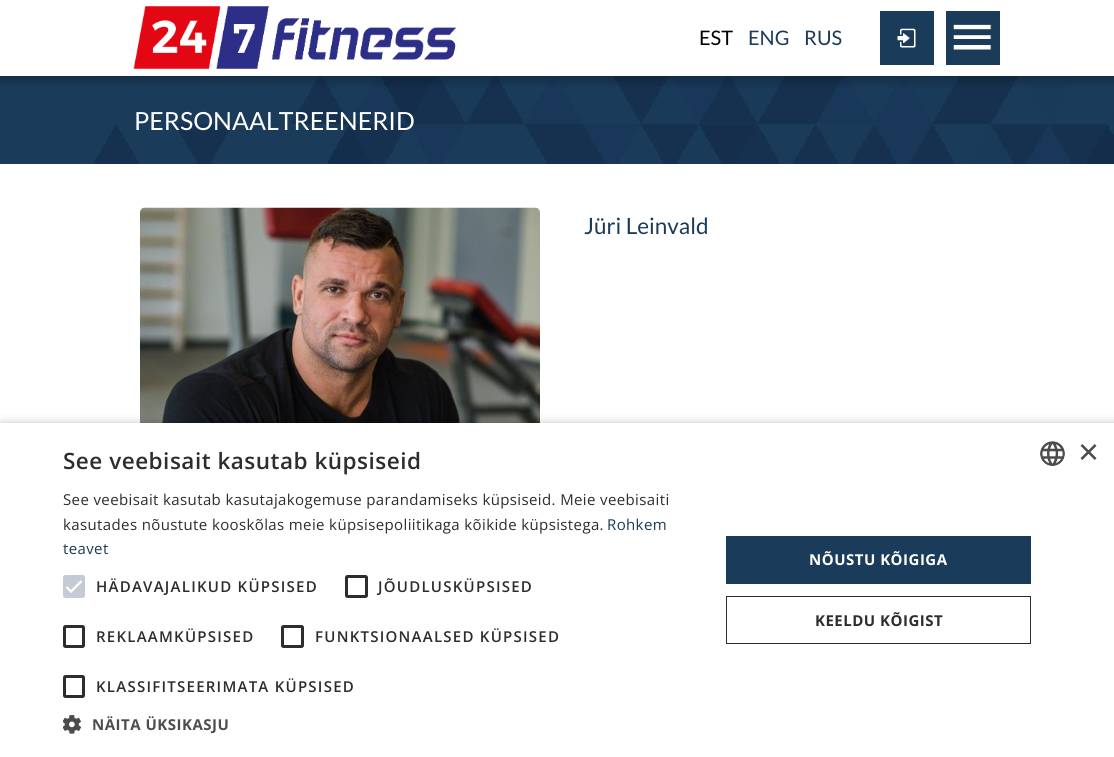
import math
import cairocffi as cairo

surface = cairo.ImageSurface(cairo.FORMAT_RGB24, 1114, 757)
ctx = cairo.Context(surface)
options = cairo.FontOptions()
options.set_hint_metrics(cairo.HINT_METRICS_OFF)
options.set_hint_style(cairo.HINT_STYLE_NONE)
ctx.set_font_options(options)
ctx.set_miter_limit(4)


def rgb(r, g, b):
    ctx.set_source_rgb(r / 255, g / 255, b / 255)


def face(family, size, italic, bold):
    ctx.select_font_face(family, cairo.FONT_SLANT_ITALIC if italic else cairo.FONT_SLANT_NORMAL, cairo.FONT_WEIGHT_BOLD if bold else cairo.FONT_WEIGHT_NORMAL)
    ctx.set_font_size(size)


def label(x, y, s):
    ctx.move_to(x, y)
    ctx.show_text(s)


def tracked(x, y, s, letter, word):
    ctx.move_to(x, y)
    for ch in s:
        ctx.show_text(ch)
        ctx.rel_move_to(letter + word * (ch == ' '), 0)


def rect(x, y, w, h):
    ctx.rectangle(x, y, w, h)
    ctx.fill()


def rrect(x, y, w, h, r):
    ctx.new_sub_path()
    for i, (u, v) in enumerate([(x + w - r, y + h - r), (x + r, y + h - r), (x + r, y + r), (x + w - r, y + r)]):
        ctx.arc(u, v, r, i * math.pi / 2, (i + 1) * math.pi / 2)
    ctx.close_path()


def soft_shadow(x, y, w, h, r, blur, alpha):
    ctx.push_group_with_content(cairo.CONTENT_ALPHA)
    ctx.set_operator(cairo.OPERATOR_SOURCE)
    for i in range(15, -16, -2):
        e = blur * i / 6
        if min(w, h) + 2 * e > 0:
            ctx.set_source_rgba(0, 0, 0, alpha * math.erfc((i - 1) / 8.5) / 2)
            rrect(x - e, y - e, w + 2 * e, h + 2 * e, max(0, min(r + e + blur * .6, min(w, h) / 2 + e)))
            ctx.fill()
    ctx.mask(ctx.pop_group())


def image(path, x, y, w, h):
    ctx.save()
    ctx.set_source_surface(cairo.ImageSurface.create_from_png(path), x, y)
    ctx.rectangle(x, y, w, h)
    ctx.fill()
    ctx.restore()


rgb(255, 255, 255)
ctx.paint()
image('image0.png', 133, 6, 324, 63)
rgb(26, 59, 89)
rect(946, 11, 54, 54)
image('image1.png', 953, 24, 39, 26)
face('Lato', 20, 0, 0)
rgb(0, 0, 0)
label(699, 45, 'EST')
rgb(26, 59, 89)
label(748, 45, 'ENG')
label(804, 45, 'RUS')
rect(880, 11, 54, 54)
image('image2.png', 897, 28, 19, 20)
rect(0, 76, 1114, 88)
image('image3.png', 94, 76, 1020, 88)
gradient = cairo.LinearGradient(558, 76, 558, 89)
gradient.add_color_stop_rgba(0, 0, 0, 0, 0.2)
gradient.add_color_stop_rgba(1, 0, 0, 0, 0)
ctx.set_source(gradient)
rect(0, 76, 1114, 11)
face('Lato', 25, 0, 0)
rgb(255, 255, 255)
label(134, 130, 'PERSONAALTREENERID')
image('image4.png', 140, 207, 400, 216)
face('Lato', 22.5, 0, 0)
rgb(26, 59, 89)
label(584, 234, 'Jüri Leinvald')
rgb(0, 0, 0)
soft_shadow(1, 425, 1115, 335, 0, 5, 0.35)
rgb(255, 255, 255)
rect(0, 423, 1114, 334)
face('Open Sans SemiBold', 22.5, 0, 0)
rgb(45, 45, 45)
tracked(63, 469, 'See veebisait kasutab küpsiseid', 0.5, 0)
face('Open Sans', 15, 0, 0)
tracked(63, 505, 'See veebisait kasutab kasutajakogemuse parandamiseks küpsiseid. Meie veebisaiti', 0.38, 0)
tracked(63, 530, 'kasutades nõustute kooskõlas meie küpsisepoliitikaga kõikide küpsistega.', 0.38, 0)
rgb(26, 59, 89)
tracked(607, 530, 'Rohkem', 0.38, 0)
tracked(63, 554, 'teavet', 0.38, 0)
rgb(195, 204, 212)
rrect(63, 575, 22, 23, 2.5)
ctx.fill()
ctx.new_path()
ctx.move_to(66.5, 587)
ctx.line_to(71, 591.5)
ctx.line_to(81.5, 581)
rgb(255, 255, 255)
ctx.set_line_width(2.3)
ctx.stroke()
face('Open Sans SemiBold', 15, 0, 0)
rgb(45, 45, 45)
tracked(96, 592, 'HÄDAVAJALIKUD KÜPSISED', 1.25, 0)
rrect(346.5, 576.5, 20, 20, 1)
ctx.set_line_width(3)
ctx.stroke()
tracked(378, 592, 'JÕUDLUSKÜPSISED', 1.25, 0)
rrect(64.5, 626.5, 19, 20, 1)
ctx.stroke()
tracked(96, 642, 'REKLAAMKÜPSISED', 1.25, 0)
rrect(282.5, 626.5, 20, 20, 1)
ctx.stroke()
tracked(315, 642, 'FUNKTSIONAALSED KÜPSISED', 1.25, 0)
rrect(64.5, 676.5, 19, 20, 1)
ctx.stroke()
tracked(96, 692, 'KLASSIFITSEERIMATA KÜPSISED', 1.25, 0)
image('image5.png', 63, 715, 18, 19)
face('Open Sans', 15, 0, 1)
rgb(77, 77, 77)
tracked(92, 730, 'NÄITA ÜKSIKASJU', 0.5, 0)
rgb(26, 59, 89)
rect(726, 536, 305, 48)
rgb(255, 255, 255)
tracked(809, 565, 'NÕUSTU KÕIGIGA', 0.5, 0)
ctx.rectangle(726.5, 596.5, 304, 47)
rgb(45, 45, 45)
ctx.set_line_width(1)
ctx.stroke()
tracked(815, 626, 'KEELDU KÕIGIST', 0.5, 0)
image('image6.png', 1040, 441, 25, 25)
face('Liberation Sans', 36, 0, 0)
rgb(77, 77, 77)
label(1078, 464, '×')
surface.write_to_png('render.png')
